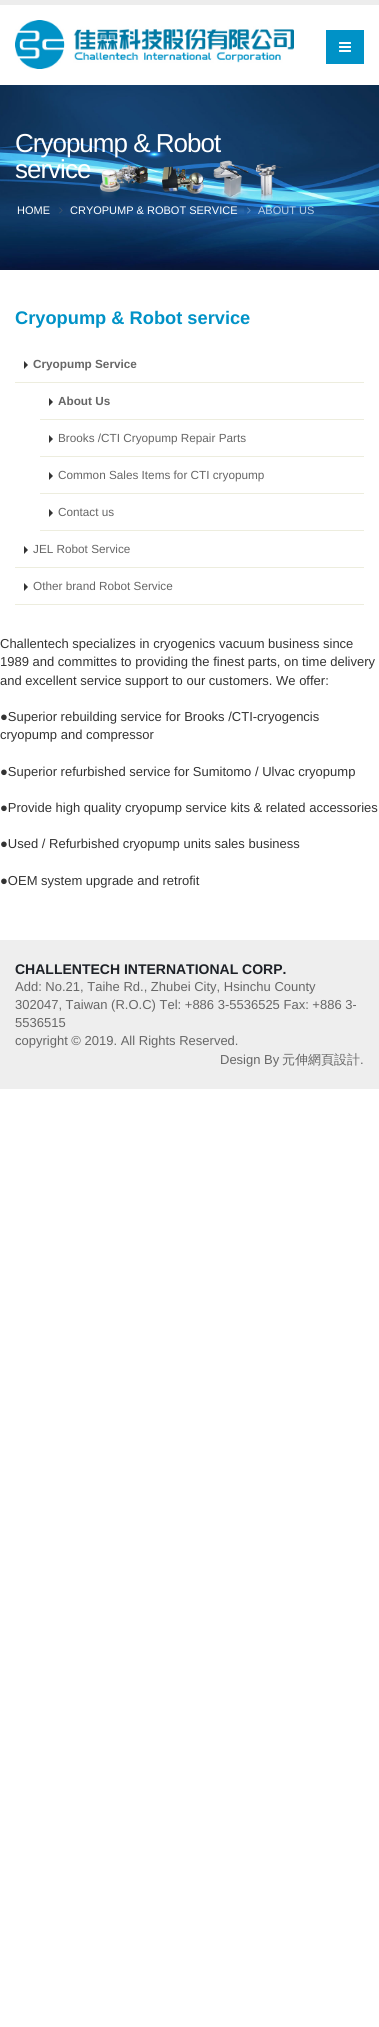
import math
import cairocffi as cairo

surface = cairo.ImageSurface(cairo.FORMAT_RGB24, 379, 2027)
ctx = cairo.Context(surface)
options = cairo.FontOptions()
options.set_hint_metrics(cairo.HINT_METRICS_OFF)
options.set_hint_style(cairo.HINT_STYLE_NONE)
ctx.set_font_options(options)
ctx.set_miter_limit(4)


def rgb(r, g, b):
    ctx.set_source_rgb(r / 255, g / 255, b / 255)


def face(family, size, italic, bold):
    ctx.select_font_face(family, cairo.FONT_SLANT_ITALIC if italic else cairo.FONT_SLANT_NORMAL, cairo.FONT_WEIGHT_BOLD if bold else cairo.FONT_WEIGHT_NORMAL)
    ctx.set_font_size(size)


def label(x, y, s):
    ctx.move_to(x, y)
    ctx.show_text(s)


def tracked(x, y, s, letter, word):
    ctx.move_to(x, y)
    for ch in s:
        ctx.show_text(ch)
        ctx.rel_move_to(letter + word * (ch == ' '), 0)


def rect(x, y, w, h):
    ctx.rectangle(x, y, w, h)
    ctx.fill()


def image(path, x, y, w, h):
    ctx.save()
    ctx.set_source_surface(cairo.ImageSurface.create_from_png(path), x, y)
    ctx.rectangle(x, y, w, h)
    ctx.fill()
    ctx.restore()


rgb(255, 255, 255)
ctx.paint()
rgb(237, 237, 237)
rect(0, 0, 379, 5)
image('image0.png', 15, 20, 279, 49)
rgb(0, 146, 199)
rect(326, 30, 38, 34)
image('image1.png', 339, 42, 12, 10)
image('image2.png', 0, 85, 379, 185)
face('Liberation Sans', 26, 0, 0)
rgb(255, 255, 255)
tracked(15, 152, 'Cryopump & Robot', -1, 0)
tracked(15, 178, 'service', -1, 0)
face('Liberation Sans', 11, 0, 0)
label(17, 214, 'HOME')
image('image3.png', 59, 207, 4, 7)
label(70, 214, 'CRYOPUMP & ROBOT SERVICE')
image('image4.png', 247, 207, 4, 7)
rgb(188, 210, 231)
label(258, 214, 'ABOUT US')
face('Liberation Sans', 18.25, 0, 1)
rgb(0, 146, 199)
label(15, 324, 'Cryopump & Robot service')
rgb(237, 237, 222)
rect(15, 382, 349, 1)
rgb(51, 51, 51)
ctx.new_path()
ctx.move_to(24, 369)
ctx.line_to(24, 361)
ctx.line_to(28, 365)
ctx.close_path()
ctx.fill()
face('Liberation Sans', 11.75, 0, 1)
rgb(102, 102, 102)
label(33, 368, 'Cryopump Service')
rgb(237, 237, 222)
rect(40, 419, 324, 1)
rgb(51, 51, 51)
ctx.new_path()
ctx.move_to(49, 406)
ctx.line_to(49, 398)
ctx.line_to(53, 402)
ctx.close_path()
ctx.fill()
rgb(102, 102, 102)
label(58, 405, 'About Us')
rgb(237, 237, 222)
rect(40, 456, 324, 1)
rgb(51, 51, 51)
ctx.new_path()
ctx.move_to(49, 443)
ctx.line_to(49, 435)
ctx.line_to(53, 439)
ctx.close_path()
ctx.fill()
face('Liberation Sans', 11.75, 0, 0)
rgb(102, 102, 102)
label(58, 442, 'Brooks /CTI Cryopump Repair Parts')
rgb(237, 237, 222)
rect(40, 493, 324, 1)
rgb(51, 51, 51)
ctx.new_path()
ctx.move_to(49, 480)
ctx.line_to(49, 472)
ctx.line_to(53, 476)
ctx.close_path()
ctx.fill()
rgb(102, 102, 102)
label(58, 479, 'Common Sales Items for CTI cryopump')
rgb(237, 237, 222)
rect(40, 530, 324, 1)
rgb(51, 51, 51)
ctx.new_path()
ctx.move_to(49, 517)
ctx.line_to(49, 509)
ctx.line_to(53, 513)
ctx.close_path()
ctx.fill()
rgb(102, 102, 102)
label(58, 516, 'Contact us')
rgb(237, 237, 222)
rect(15, 567, 349, 1)
rgb(51, 51, 51)
ctx.new_path()
ctx.move_to(24, 554)
ctx.line_to(24, 546)
ctx.line_to(28, 550)
ctx.close_path()
ctx.fill()
rgb(102, 102, 102)
label(33, 553, 'JEL Robot Service')
rgb(237, 237, 222)
rect(15, 604, 349, 1)
rgb(51, 51, 51)
ctx.new_path()
ctx.move_to(24, 591)
ctx.line_to(24, 583)
ctx.line_to(28, 587)
ctx.close_path()
ctx.fill()
rgb(102, 102, 102)
label(33, 590, 'Other brand Robot Service')
face('Liberation Sans', 13, 0, 0)
rgb(51, 51, 51)
label(0, 648, 'Challentech specializes in cryogenics vacuum business since')
label(0, 666, '1989 and committes to providing the finest parts, on time delivery')
label(0, 685, 'and excellent service support to our customers. We offer:')
label(0, 721, '●Superior rebuilding service for Brooks /CTI-cryogencis')
label(0, 739, 'cryopump and compressor')
label(0, 776, '●Superior refurbished service for Sumitomo / Ulvac cryopump')
label(0, 812, '●Provide high quality cryopump service kits & related accessories')
label(0, 848, '●Used / Refurbished cryopump units sales business')
label(0, 885, '●OEM system upgrade and retrofit')
rgb(238, 238, 238)
rect(0, 940, 379, 149)
face('Liberation Sans', 14, 0, 1)
rgb(29, 33, 39)
label(15, 974, 'CHALLENTECH INTERNATIONAL CORP.')
face('Liberation Sans', 13, 0, 0)
rgb(102, 102, 102)
label(15, 991, 'Add: No.21, Taihe Rd., Zhubei City, Hsinchu County')
label(15, 1009, '302047, Taiwan (R.O.C) Tel: +886 3-5536525 Fax: +886 3-')
label(15, 1027, '5536515')
label(15, 1045, 'copyright © 2019. All Rights Reserved.')
label(220, 1064, 'Design By')
face('WenQuanYi Zen Hei Medium', 13, 0, 0)
label(282, 1064, '元伸網頁設計')
face('Liberation Sans', 13, 0, 0)
label(360, 1064, '.')
surface.write_to_png('render.png')
